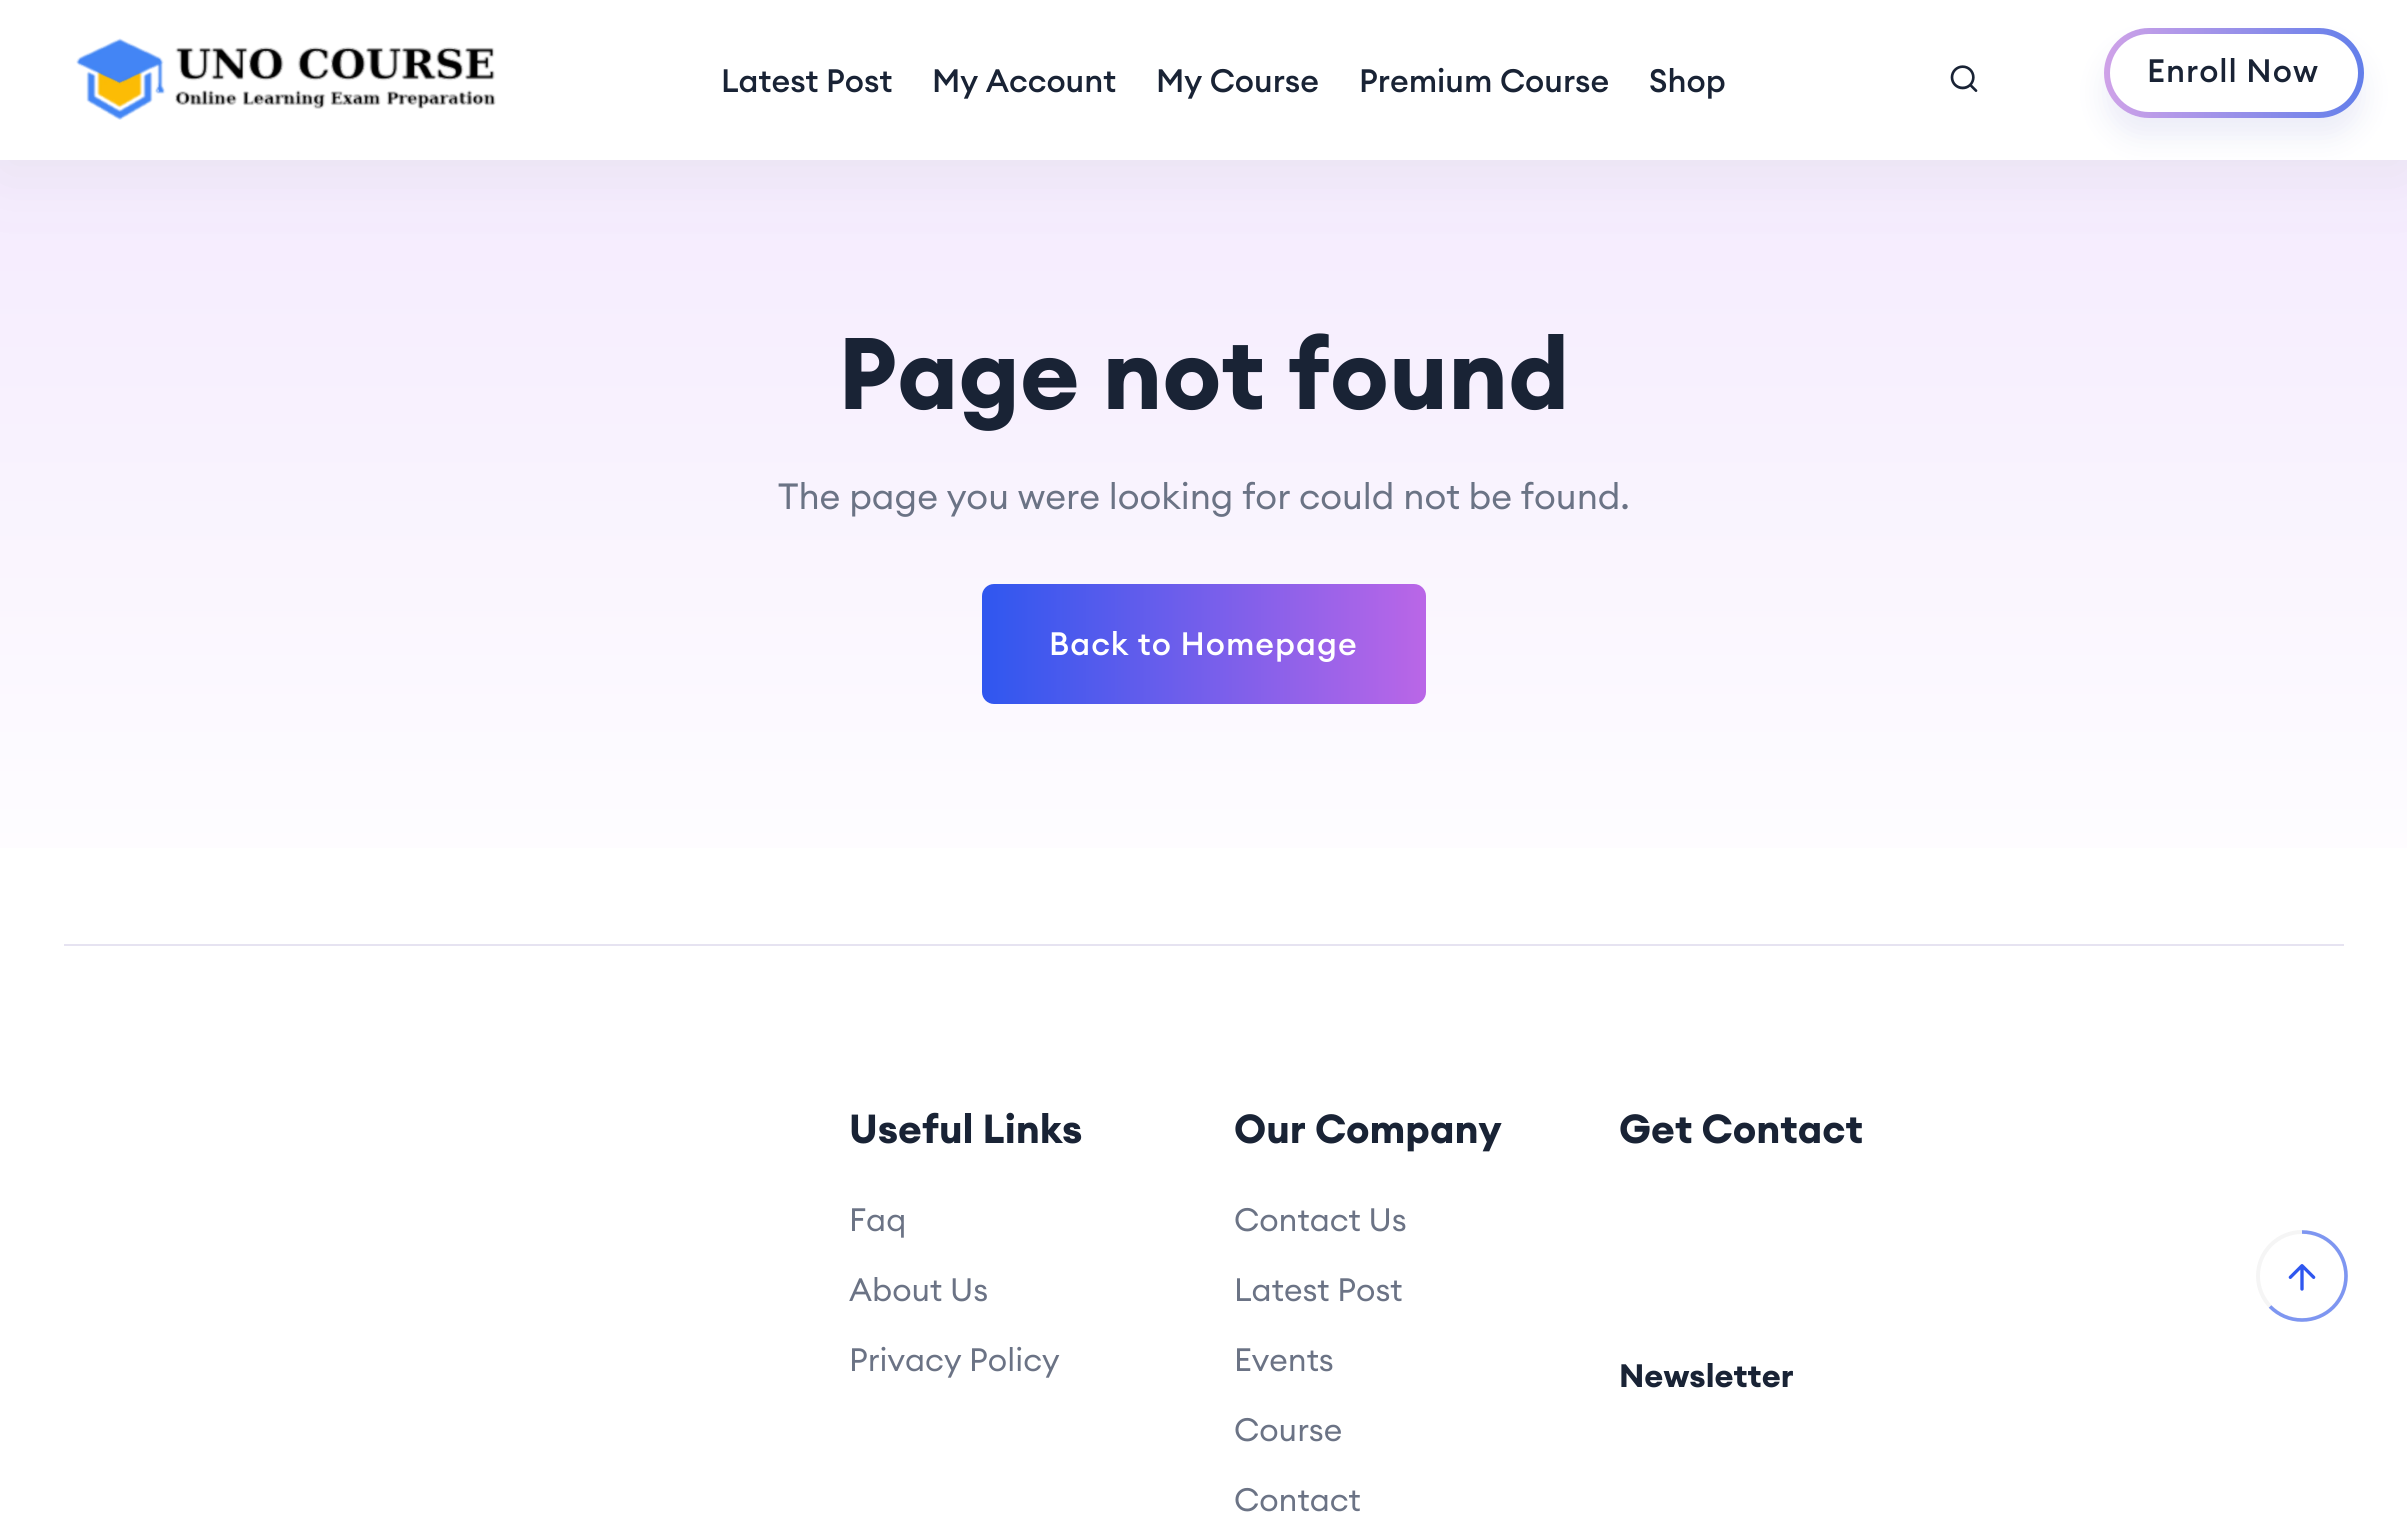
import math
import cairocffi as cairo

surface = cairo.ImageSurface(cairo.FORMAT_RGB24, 2407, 1521)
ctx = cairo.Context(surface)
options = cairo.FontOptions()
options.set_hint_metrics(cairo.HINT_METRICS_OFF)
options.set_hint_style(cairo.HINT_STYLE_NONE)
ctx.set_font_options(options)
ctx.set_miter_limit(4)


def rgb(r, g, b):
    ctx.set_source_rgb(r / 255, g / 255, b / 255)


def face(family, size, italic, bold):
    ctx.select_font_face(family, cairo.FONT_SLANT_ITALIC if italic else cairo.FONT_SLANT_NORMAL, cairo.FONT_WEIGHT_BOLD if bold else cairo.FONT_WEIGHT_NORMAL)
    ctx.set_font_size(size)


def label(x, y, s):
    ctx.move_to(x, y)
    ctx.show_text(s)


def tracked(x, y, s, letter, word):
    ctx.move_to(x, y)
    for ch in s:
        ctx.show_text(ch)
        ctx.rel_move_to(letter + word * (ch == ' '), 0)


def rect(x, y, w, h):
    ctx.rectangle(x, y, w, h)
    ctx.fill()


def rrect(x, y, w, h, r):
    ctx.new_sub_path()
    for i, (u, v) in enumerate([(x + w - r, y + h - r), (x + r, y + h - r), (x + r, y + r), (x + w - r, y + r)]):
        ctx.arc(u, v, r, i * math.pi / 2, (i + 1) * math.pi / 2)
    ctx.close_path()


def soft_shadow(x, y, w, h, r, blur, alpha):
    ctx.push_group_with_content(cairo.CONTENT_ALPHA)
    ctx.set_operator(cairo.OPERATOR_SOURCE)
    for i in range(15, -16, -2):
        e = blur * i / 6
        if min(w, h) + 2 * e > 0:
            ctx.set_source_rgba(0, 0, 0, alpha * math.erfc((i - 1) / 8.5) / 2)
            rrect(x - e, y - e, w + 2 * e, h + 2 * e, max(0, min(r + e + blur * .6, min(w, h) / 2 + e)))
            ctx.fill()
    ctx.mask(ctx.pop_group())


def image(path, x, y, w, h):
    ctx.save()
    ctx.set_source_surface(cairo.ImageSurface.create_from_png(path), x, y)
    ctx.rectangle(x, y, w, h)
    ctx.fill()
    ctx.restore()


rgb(255, 255, 255)
ctx.paint()
gradient = cairo.LinearGradient(1204, -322, 1204, 944)
gradient.add_color_stop_rgba(0, 0.933, 0.871, 0.992, 1)
gradient.add_color_stop_rgba(1, 1, 1, 1, 1)
ctx.set_source(gradient)
rect(0, 160, 2407, 688)
rgb(215, 216, 222)
soft_shadow(0, 12, 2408, 160, 0, 34, 0.41)
rgb(255, 255, 255)
rect(0, 0, 2407, 160)
image('image0.png', 76, 38, 420, 82)
face('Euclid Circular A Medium', 32, 0, 0)
rgb(25, 35, 53)
label(721, 92, 'Latest Post')
label(932, 92, 'My Account')
label(1156, 92, 'My Course')
label(1359, 92, 'Premium Course')
label(1649, 92, 'Shop')
image('image1.png', 1950, 65, 28, 27)
rgb(209, 211, 237)
soft_shadow(2104, 48, 260, 90, 45, 13, 0.39)
gradient = cairo.LinearGradient(2104, 73, 2364, 73)
gradient.add_color_stop_rgba(0, 0.812, 0.635, 0.91, 1)
gradient.add_color_stop_rgba(1, 0.388, 0.498, 0.918, 1)
ctx.set_source(gradient)
rrect(2104, 28, 260, 90, 45)
ctx.fill()
rgb(255, 255, 255)
rrect(2110, 34, 248, 78, 39)
ctx.fill()
rgb(25, 35, 53)
tracked(2147, 82, 'Enroll Now', 1, 0)
face('Euclid Circular A', 100, 0, 1)
label(838, 409, 'Page not found')
face('Euclid Circular A', 36, 0, 0)
rgb(107, 115, 133)
label(778, 509, 'The page you were looking for could not be found.')
gradient = cairo.LinearGradient(982, 644, 2314, 644)
gradient.add_color_stop_rgba(0, 0.184, 0.341, 0.937, 1)
gradient.add_color_stop_rgba(0.33, 0.725, 0.4, 0.906, 1)
gradient.add_color_stop_rgba(0.67, 0.725, 0.4, 0.906, 1)
gradient.add_color_stop_rgba(1, 0.184, 0.341, 0.937, 1)
ctx.set_source(gradient)
rrect(982, 584, 444, 120, 12)
ctx.fill()
face('Euclid Circular A Medium', 32, 0, 0)
rgb(255, 255, 255)
tracked(1049, 655, 'Back to Homepage', 1, 0)
rgb(230, 227, 241)
rect(64, 944, 2280, 2)
face('Euclid Circular A', 40, 0, 1)
rgb(25, 35, 53)
label(849, 1143, 'Useful Links')
face('Euclid Circular A', 32, 0, 0)
rgb(107, 115, 133)
label(849, 1231, 'Faq')
label(849, 1301, 'About Us')
label(849, 1371, 'Privacy Policy')
face('Euclid Circular A', 40, 0, 1)
rgb(25, 35, 53)
label(1234, 1143, 'Our Company')
face('Euclid Circular A', 32, 0, 0)
rgb(107, 115, 133)
label(1234, 1231, 'Contact Us')
label(1234, 1301, 'Latest Post')
label(1234, 1371, 'Events')
label(1234, 1441, 'Course')
label(1234, 1511, 'Contact')
face('Euclid Circular A', 40, 0, 1)
rgb(25, 35, 53)
label(1619, 1143, 'Get Contact')
face('Euclid Circular A', 32, 0, 1)
label(1619, 1387, 'Newsletter')
ctx.new_path()
ctx.arc(2302, 1276, 44, 0, 2 * math.pi)
rgb(245, 245, 245)
ctx.set_line_width(4)
ctx.stroke()
ctx.new_path()
ctx.move_to(2302, 1232)
ctx.curve_to(2326.5, 1232, 2346, 1251.5, 2346, 1276)
ctx.curve_to(2346, 1300.5, 2326.5, 1320, 2302, 1320)
ctx.curve_to(2289.5, 1320, 2278.5, 1315, 2270, 1306.5)
ctx.set_source_rgba(0.184, 0.341, 0.937, 0.6)
ctx.set_line_width(3.6)
ctx.stroke()
image('image2.png', 2288, 1264, 28, 27)
surface.write_to_png('render.png')
